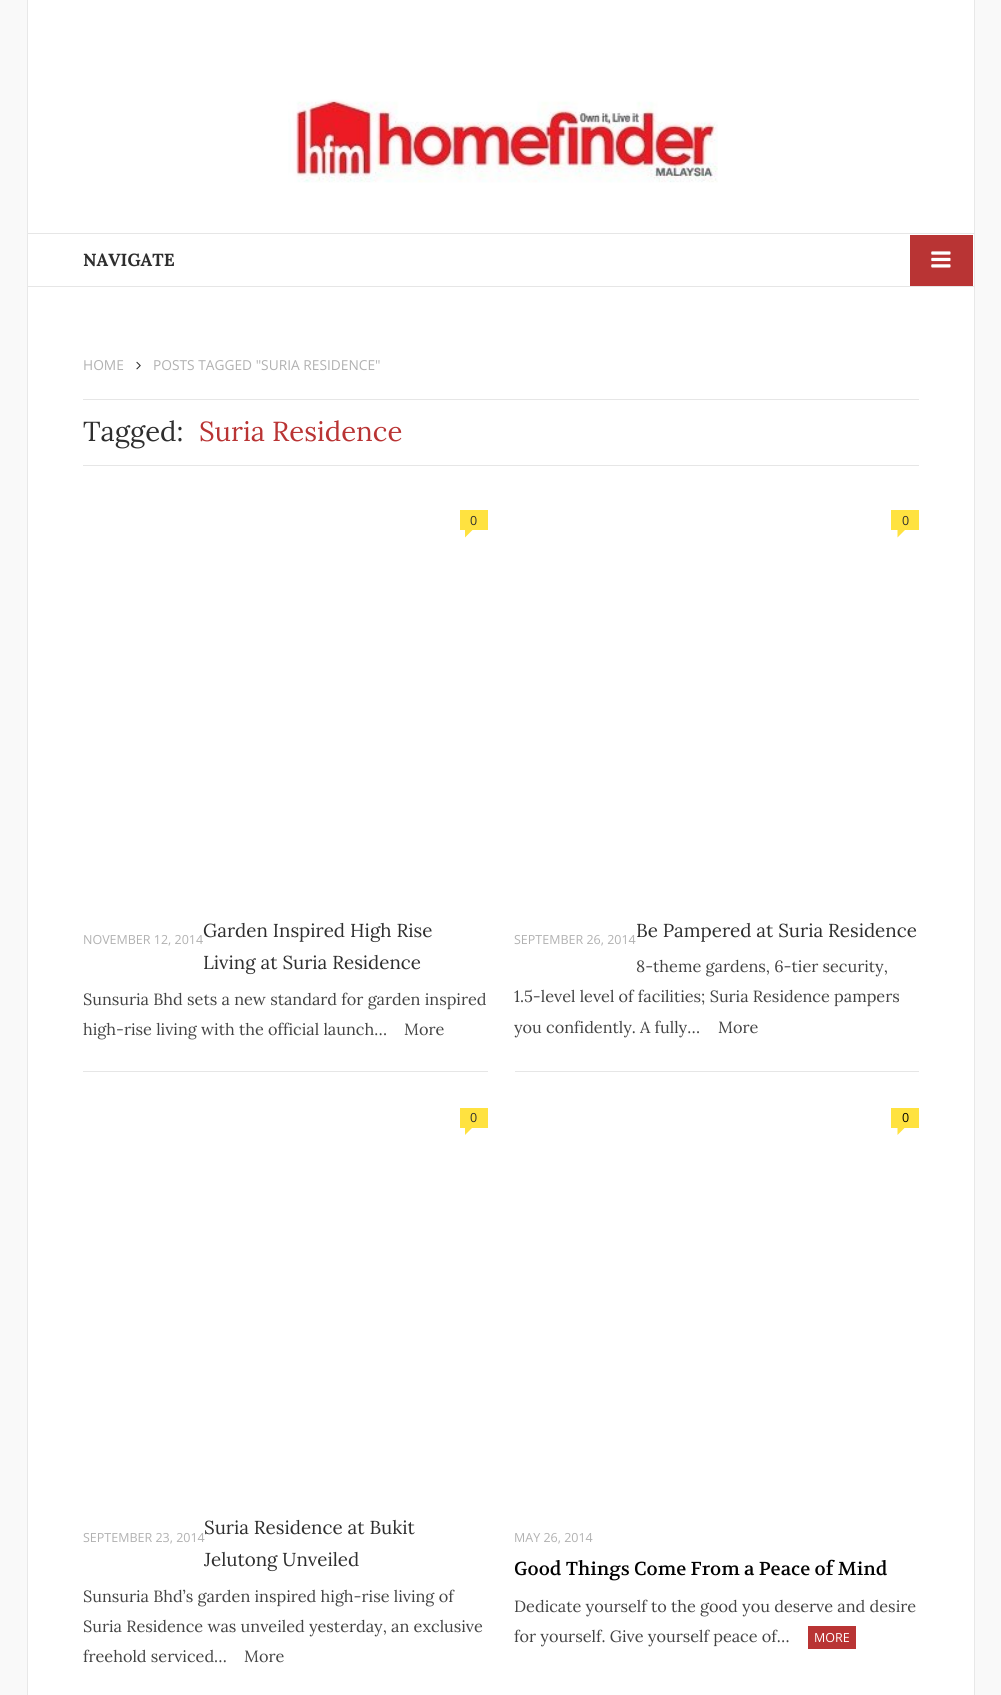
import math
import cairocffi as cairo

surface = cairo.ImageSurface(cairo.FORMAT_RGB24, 1001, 1695)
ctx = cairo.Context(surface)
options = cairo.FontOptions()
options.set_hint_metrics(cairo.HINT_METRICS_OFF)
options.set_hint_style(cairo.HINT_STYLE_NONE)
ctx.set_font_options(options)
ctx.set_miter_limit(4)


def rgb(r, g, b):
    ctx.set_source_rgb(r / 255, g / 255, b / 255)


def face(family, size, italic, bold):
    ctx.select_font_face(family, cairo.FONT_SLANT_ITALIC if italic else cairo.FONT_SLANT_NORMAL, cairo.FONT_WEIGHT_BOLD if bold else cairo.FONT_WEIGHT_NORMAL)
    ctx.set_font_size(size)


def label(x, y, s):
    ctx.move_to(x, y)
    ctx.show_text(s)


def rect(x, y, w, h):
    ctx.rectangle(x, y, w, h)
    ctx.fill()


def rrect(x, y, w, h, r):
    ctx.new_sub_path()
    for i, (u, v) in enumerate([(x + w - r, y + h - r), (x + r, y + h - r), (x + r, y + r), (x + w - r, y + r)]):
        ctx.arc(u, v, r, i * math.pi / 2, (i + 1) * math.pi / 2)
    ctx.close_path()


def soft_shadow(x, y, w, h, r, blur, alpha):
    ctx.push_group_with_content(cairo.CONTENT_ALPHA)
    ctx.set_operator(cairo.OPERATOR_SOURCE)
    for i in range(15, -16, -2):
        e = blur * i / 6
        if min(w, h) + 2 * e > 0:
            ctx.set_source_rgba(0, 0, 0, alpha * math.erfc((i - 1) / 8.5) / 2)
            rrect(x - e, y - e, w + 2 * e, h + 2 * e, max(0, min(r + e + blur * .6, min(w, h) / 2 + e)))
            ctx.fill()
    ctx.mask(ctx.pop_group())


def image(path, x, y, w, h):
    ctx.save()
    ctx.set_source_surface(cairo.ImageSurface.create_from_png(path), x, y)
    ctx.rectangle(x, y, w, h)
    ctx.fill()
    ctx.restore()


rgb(249, 249, 249)
ctx.paint()
rgb(0, 0, 0)
soft_shadow(28, -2, 946, 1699, 0, 0.5, 0.25)
rgb(255, 255, 255)
rect(28, 0, 946, 1695)
image('image0.png', 288, 99, 430, 84)
rgb(230, 230, 230)
rect(28, 233, 946, 1)
rect(28, 286, 946, 1)
face('Lora', 17.5, 0, 1)
rgb(46, 46, 46)
label(83, 266, 'NAVIGATE')
rgb(185, 52, 52)
rect(910, 235, 63, 51)
image('image1.png', 931, 251, 20, 17)
face('Open Sans', 13.75, 0, 0)
rgb(177, 177, 177)
label(83, 370, 'HOME')
image('image2.png', 136, 361, 5, 9)
label(153, 370, 'POSTS TAGGED "SURIA RESIDENCE"')
rgb(230, 230, 230)
rect(83, 399, 836, 1)
rect(83, 465, 836, 1)
face('Lora', 27.5, 0, 0)
rgb(46, 46, 46)
label(83, 441, 'Tagged:')
rgb(185, 52, 52)
label(199, 441, 'Suria Residence')
rgb(255, 226, 64)
rect(460, 510, 28, 20)
face('Open Sans', 12.5, 0, 0)
rgb(46, 46, 46)
label(470, 525, '0')
rgb(255, 226, 64)
ctx.new_path()
ctx.move_to(465, 537.5)
ctx.line_to(465, 530)
ctx.line_to(472.5, 530)
ctx.close_path()
ctx.fill()
rgb(177, 177, 177)
label(83, 944, 'NOVEMBER 12, 2014')
face('Lora', 18.75, 0, 0)
rgb(46, 46, 46)
label(203, 937, 'Garden Inspired High Rise')
label(203, 969, 'Living at Suria Residence')
face('Lora', 16.25, 0, 0)
rgb(68, 68, 68)
label(83, 1005, 'Sunsuria Bhd sets a new standard for garden inspired')
label(83, 1035, 'high-rise living with the official launch…')
label(404, 1035, 'More')
rgb(255, 226, 64)
rect(891, 510, 28, 20)
face('Open Sans', 12.5, 0, 0)
rgb(46, 46, 46)
label(902, 525, '0')
rgb(255, 226, 64)
ctx.new_path()
ctx.move_to(897.5, 537.5)
ctx.line_to(897.5, 530)
ctx.line_to(905, 530)
ctx.close_path()
ctx.fill()
rgb(177, 177, 177)
label(514, 944, 'SEPTEMBER 26, 2014')
face('Lora', 18.75, 0, 0)
rgb(46, 46, 46)
label(636, 937, 'Be Pampered at Suria Residence')
face('Lora', 16.25, 0, 0)
rgb(68, 68, 68)
label(636, 972, '8-theme gardens, 6-tier security,')
label(514, 1002, '1.5-level level of facilities; Suria Residence pampers')
label(514, 1033, 'you confidently. A fully…')
label(718, 1033, 'More')
rgb(230, 230, 230)
rect(83, 1071, 405, 1)
rgb(255, 226, 64)
rect(460, 1108, 28, 20)
face('Open Sans', 12.5, 0, 0)
rgb(46, 46, 46)
label(470, 1122, '0')
rgb(255, 226, 64)
ctx.new_path()
ctx.move_to(465, 1135)
ctx.line_to(465, 1127.5)
ctx.line_to(472.5, 1127.5)
ctx.close_path()
ctx.fill()
rgb(177, 177, 177)
label(83, 1542, 'SEPTEMBER 23, 2014')
face('Lora', 18.75, 0, 0)
rgb(46, 46, 46)
label(204, 1534, 'Suria Residence at Bukit')
label(204, 1566, 'Jelutong Unveiled')
face('Lora', 16.25, 0, 0)
rgb(68, 68, 68)
label(83, 1602, 'Sunsuria Bhd’s garden inspired high-rise living of')
label(83, 1632, 'Suria Residence was unveiled yesterday, an exclusive')
label(83, 1662, 'freehold serviced…')
label(244, 1662, 'More')
rgb(230, 230, 230)
rect(515, 1071, 404, 1)
rgb(255, 226, 64)
rect(891, 1108, 28, 20)
face('Open Sans', 12.5, 0, 0)
rgb(1, 1, 1)
label(902, 1122, '0')
rgb(255, 226, 64)
ctx.new_path()
ctx.move_to(897.5, 1135)
ctx.line_to(897.5, 1127.5)
ctx.line_to(905, 1127.5)
ctx.close_path()
ctx.fill()
rgb(177, 177, 177)
label(514, 1542, 'MAY 26, 2014')
face('Volkhov', 18.75, 0, 0)
rgb(1, 1, 1)
label(514, 1575, 'Good Things Come From a Peace of Mind')
face('Lora', 16.25, 0, 0)
rgb(68, 68, 68)
label(514, 1612, 'Dedicate yourself to the good you deserve and desire')
label(514, 1642, 'for yourself. Give yourself peace of…')
rgb(185, 52, 52)
rect(808, 1626, 48, 23)
face('Open Sans', 12.5, 0, 0)
rgb(255, 255, 255)
label(814, 1642, 'MORE')
surface.write_to_png('render.png')
